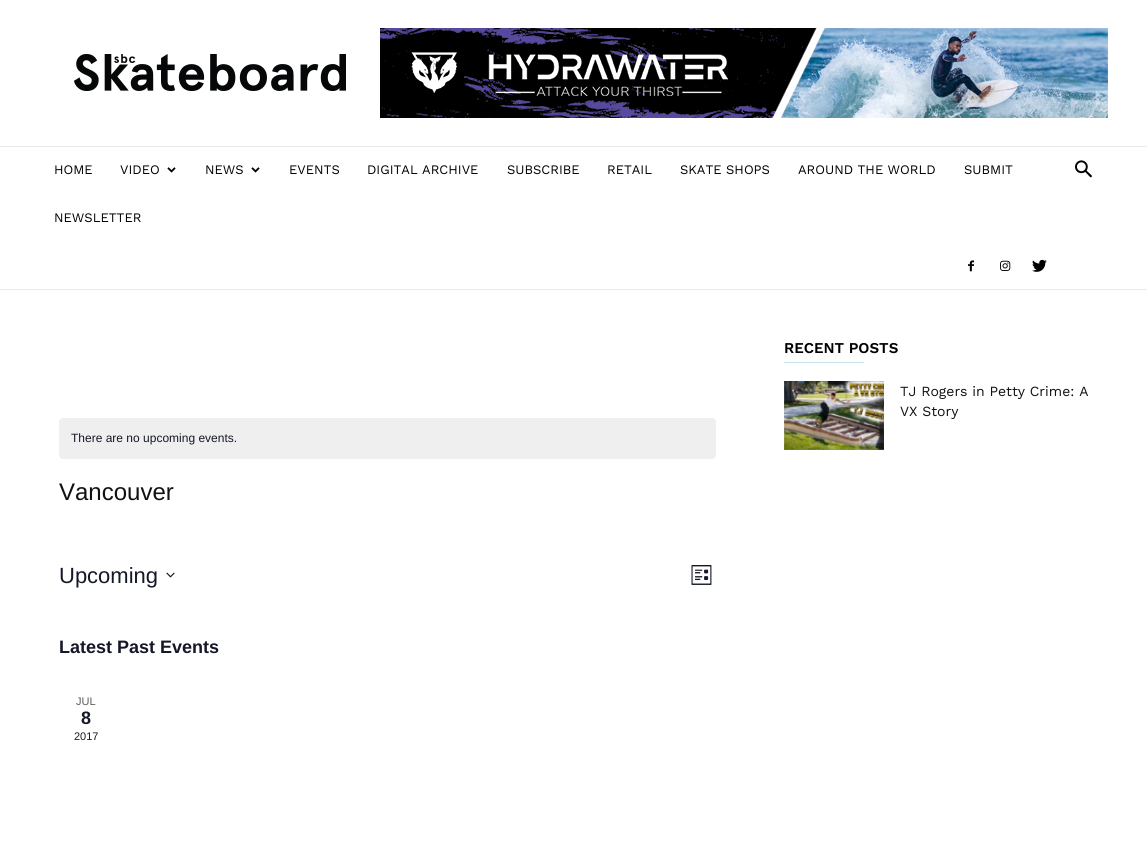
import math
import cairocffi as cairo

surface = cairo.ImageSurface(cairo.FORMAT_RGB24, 1147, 857)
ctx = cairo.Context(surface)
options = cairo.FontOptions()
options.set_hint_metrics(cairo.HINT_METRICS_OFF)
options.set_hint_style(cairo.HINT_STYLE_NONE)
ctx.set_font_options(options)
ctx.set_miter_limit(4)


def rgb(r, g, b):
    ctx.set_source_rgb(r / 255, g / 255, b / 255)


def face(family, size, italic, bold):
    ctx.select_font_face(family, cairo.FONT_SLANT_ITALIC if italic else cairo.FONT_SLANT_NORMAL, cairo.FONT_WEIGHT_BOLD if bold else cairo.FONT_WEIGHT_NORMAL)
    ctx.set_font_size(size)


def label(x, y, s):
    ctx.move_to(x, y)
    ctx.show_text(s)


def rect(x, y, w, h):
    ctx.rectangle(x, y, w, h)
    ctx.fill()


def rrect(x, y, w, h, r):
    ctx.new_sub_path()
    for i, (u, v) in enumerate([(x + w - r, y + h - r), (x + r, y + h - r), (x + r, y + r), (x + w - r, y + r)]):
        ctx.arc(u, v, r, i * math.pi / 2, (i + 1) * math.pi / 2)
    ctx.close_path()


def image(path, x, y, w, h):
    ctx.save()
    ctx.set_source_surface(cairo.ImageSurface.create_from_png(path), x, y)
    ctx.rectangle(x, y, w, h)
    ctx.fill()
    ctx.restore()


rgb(255, 255, 255)
ctx.paint()
image('image0.png', 74, 54, 272, 37)
image('image1.png', 380, 28, 728, 90)
rgb(235, 235, 235)
rect(0, 146, 1147, 1)
face('Work Sans', 13, 0, 0)
rgb(0, 0, 0)
label(54, 174, 'HOME')
label(120, 174, 'VIDEO')
image('image2.png', 167, 167, 9, 6)
label(205, 174, 'NEWS')
image('image2.png', 251, 167, 9, 6)
label(289, 174, 'EVENTS')
label(367, 174, 'DIGITAL ARCHIVE')
label(507, 174, 'SUBSCRIBE')
label(607, 174, 'RETAIL')
label(680, 174, 'SKATE SHOPS')
label(798, 174, 'AROUND THE WORLD')
label(964, 174, 'SUBMIT')
label(54, 222, 'NEWSLETTER')
image('image3.png', 1075, 160, 17, 18)
image('image4.png', 968, 260, 6, 12)
image('image5.png', 1000, 260, 11, 11)
image('image6.png', 1032, 259, 15, 13)
rgb(235, 235, 235)
rect(0, 289, 1147, 1)
face('Work Sans SemiBold', 15, 0, 0)
rgb(0, 0, 0)
label(784, 353, 'RECENT POSTS')
rgb(195, 228, 236)
rect(784, 362, 80, 1)
image('image7.png', 784, 381, 100, 69)
face('Work Sans', 14, 0, 0)
rgb(17, 17, 17)
label(900, 396, 'TJ Rogers in Petty Crime: A')
label(900, 416, 'VX Story')
rgb(239, 239, 240)
rrect(59, 418, 657, 41, 4)
ctx.fill()
face('Liberation Sans', 12, 0, 0)
rgb(20, 24, 39)
label(71, 442, 'There are no upcoming events.')
face('Liberation Sans', 24, 0, 0)
rgb(17, 17, 17)
label(59, 500, 'Vancouver')
face('Liberation Sans', 22, 0, 0)
rgb(20, 24, 39)
label(59, 583, 'Upcoming')
image('image8.png', 166, 572, 9, 6)
image('image9.png', 691, 565, 21, 20)
face('Liberation Sans', 18, 0, 1)
label(59, 653, 'Latest Past Events')
face('Liberation Sans', 11, 0, 0)
rgb(93, 93, 93)
label(76, 705, 'JUL')
face('Liberation Sans', 18, 0, 1)
rgb(20, 24, 39)
label(81, 724, '8')
face('Liberation Sans', 11, 0, 0)
label(74, 740, '2017')
surface.write_to_png('render.png')
